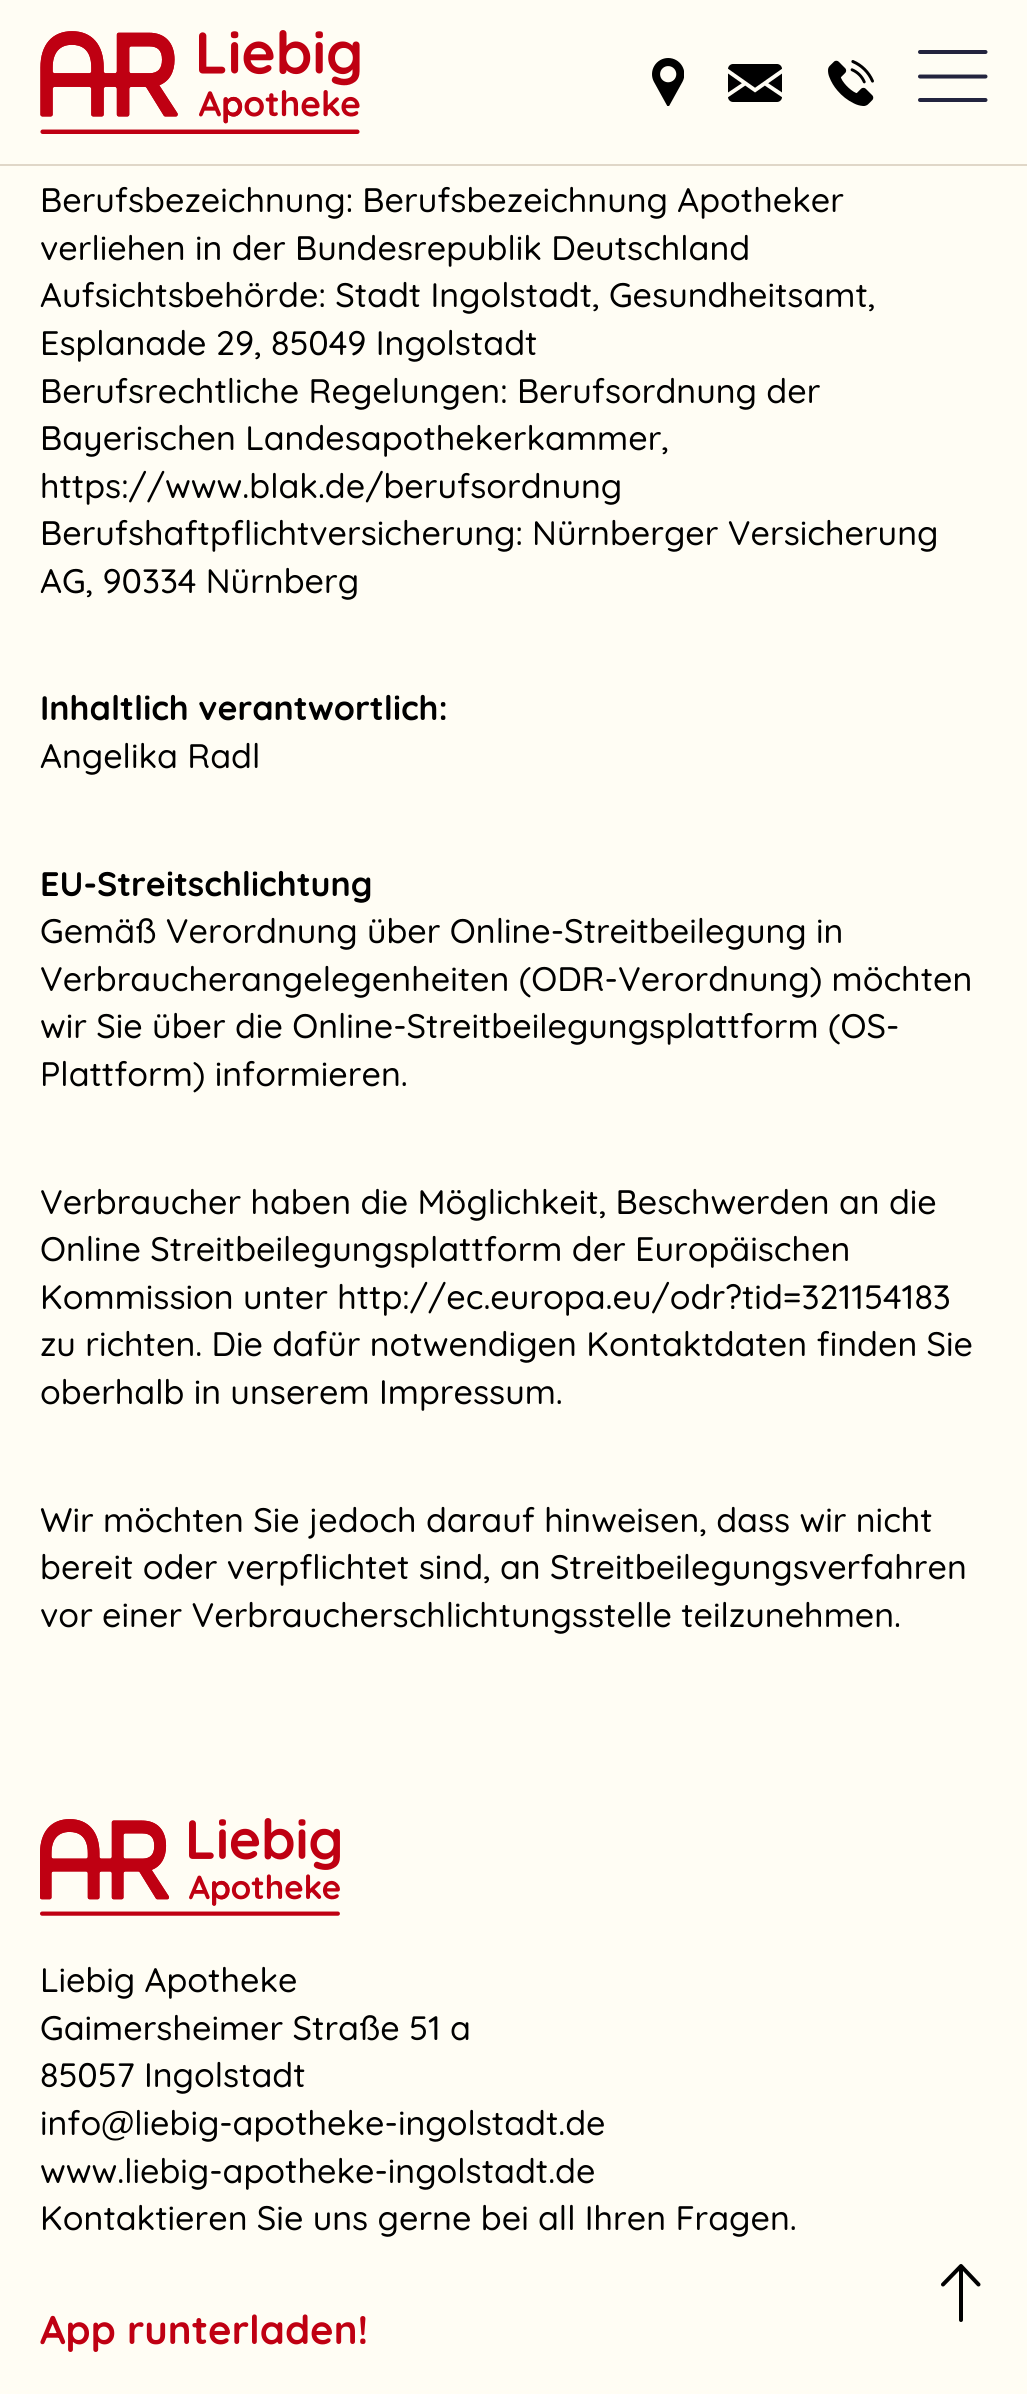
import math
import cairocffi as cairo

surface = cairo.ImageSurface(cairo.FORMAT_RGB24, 1027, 2394)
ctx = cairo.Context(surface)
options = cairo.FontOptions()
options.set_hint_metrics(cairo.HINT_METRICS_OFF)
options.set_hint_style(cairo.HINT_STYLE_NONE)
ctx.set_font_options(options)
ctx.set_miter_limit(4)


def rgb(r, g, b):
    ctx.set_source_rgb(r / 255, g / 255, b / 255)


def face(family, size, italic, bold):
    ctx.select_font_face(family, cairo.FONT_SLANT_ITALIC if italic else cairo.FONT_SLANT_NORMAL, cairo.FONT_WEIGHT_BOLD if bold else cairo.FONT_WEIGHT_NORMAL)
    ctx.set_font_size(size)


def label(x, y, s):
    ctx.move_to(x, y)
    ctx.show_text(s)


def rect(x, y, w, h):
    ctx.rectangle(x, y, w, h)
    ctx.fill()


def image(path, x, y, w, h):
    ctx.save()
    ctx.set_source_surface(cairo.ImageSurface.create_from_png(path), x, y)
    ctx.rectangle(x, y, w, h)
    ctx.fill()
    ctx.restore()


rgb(255, 253, 244)
ctx.paint()
rgb(224, 215, 200)
rect(0, 164, 1027, 2)
image('image0.png', 40, 30, 320, 104)
image('image1.png', 652, 58, 32, 48)
image('image2.png', 728, 64, 54, 38)
image('image3.png', 828, 60, 46, 46)
ctx.new_path()
ctx.move_to(920, 52)
ctx.line_to(985.5, 52)
rgb(35, 36, 62)
ctx.set_line_width(4)
ctx.set_line_cap(cairo.LINE_CAP_ROUND)
ctx.stroke()
ctx.new_path()
ctx.move_to(920, 76.5)
ctx.line_to(985.5, 76.5)
ctx.stroke()
ctx.new_path()
ctx.move_to(920, 100)
ctx.line_to(985.5, 100)
ctx.stroke()
face('Quicksand Light', 34, 0, 0)
rgb(0, 0, 0)
label(40, 212, 'Berufsbezeichnung: Berufsbezeichnung Apotheker')
label(40, 260, 'verliehen in der Bundesrepublik Deutschland')
label(40, 307, 'Aufsichtsbehörde: Stadt Ingolstadt, Gesundheitsamt,')
label(40, 355, 'Esplanade 29, 85049 Ingolstadt')
label(40, 403, 'Berufsrechtliche Regelungen: Berufsordnung der')
label(40, 450, 'Bayerischen Landesapothekerkammer,')
label(40, 498, 'https://www.blak.de/berufsordnung')
label(40, 545, 'Berufshaftpflichtversicherung: Nürnberger Versicherung')
label(40, 593, 'AG, 90334 Nürnberg')
face('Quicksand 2 Light', 34, 0, 0)
label(40, 720, 'Inhaltlich verantwortlich:')
face('Quicksand Light', 34, 0, 0)
label(40, 768, 'Angelika Radl')
face('Quicksand 2 Light', 34, 0, 0)
label(40, 896, 'EU-Streitschlichtung')
face('Quicksand Light', 34, 0, 0)
label(40, 943, 'Gemäß Verordnung über Online-Streitbeilegung in')
label(40, 991, 'Verbraucherangelegenheiten (ODR-Verordnung) möchten')
label(40, 1038, 'wir Sie über die Online-Streitbeilegungsplattform (OS-')
label(40, 1086, 'Plattform) informieren.')
label(40, 1214, 'Verbraucher haben die Möglichkeit, Beschwerden an die')
label(40, 1261, 'Online Streitbeilegungsplattform der Europäischen')
label(40, 1309, 'Kommission unter http://ec.europa.eu/odr?tid=321154183')
label(40, 1356, 'zu richten. Die dafür notwendigen Kontaktdaten finden Sie')
label(40, 1404, 'oberhalb in unserem Impressum.')
label(40, 1532, 'Wir möchten Sie jedoch darauf hinweisen, dass wir nicht')
label(40, 1579, 'bereit oder verpflichtet sind, an Streitbeilegungsverfahren')
label(40, 1627, 'vor einer Verbraucherschlichtungsstelle teilzunehmen.')
image('image4.png', 40, 1818, 300, 98)
label(40, 1992, 'Liebig Apotheke')
label(40, 2040, 'Gaimersheimer Straße 51 a')
label(40, 2087, '85057 Ingolstadt')
label(40, 2135, 'info@liebig-apotheke-ingolstadt.de')
label(40, 2183, 'www.liebig-apotheke-ingolstadt.de')
label(40, 2230, 'Kontaktieren Sie uns gerne bei all Ihren Fragen.')
face('Quicksand 2 Light', 40, 0, 0)
rgb(191, 0, 18)
label(40, 2344, 'App runterladen!')
ctx.new_path()
ctx.move_to(943, 2284.5)
ctx.line_to(961, 2266)
ctx.move_to(978.5, 2284.5)
ctx.line_to(961, 2266)
ctx.move_to(961, 2267)
ctx.line_to(961, 2320)
rgb(0, 0, 0)
ctx.stroke()
surface.write_to_png('render.png')
